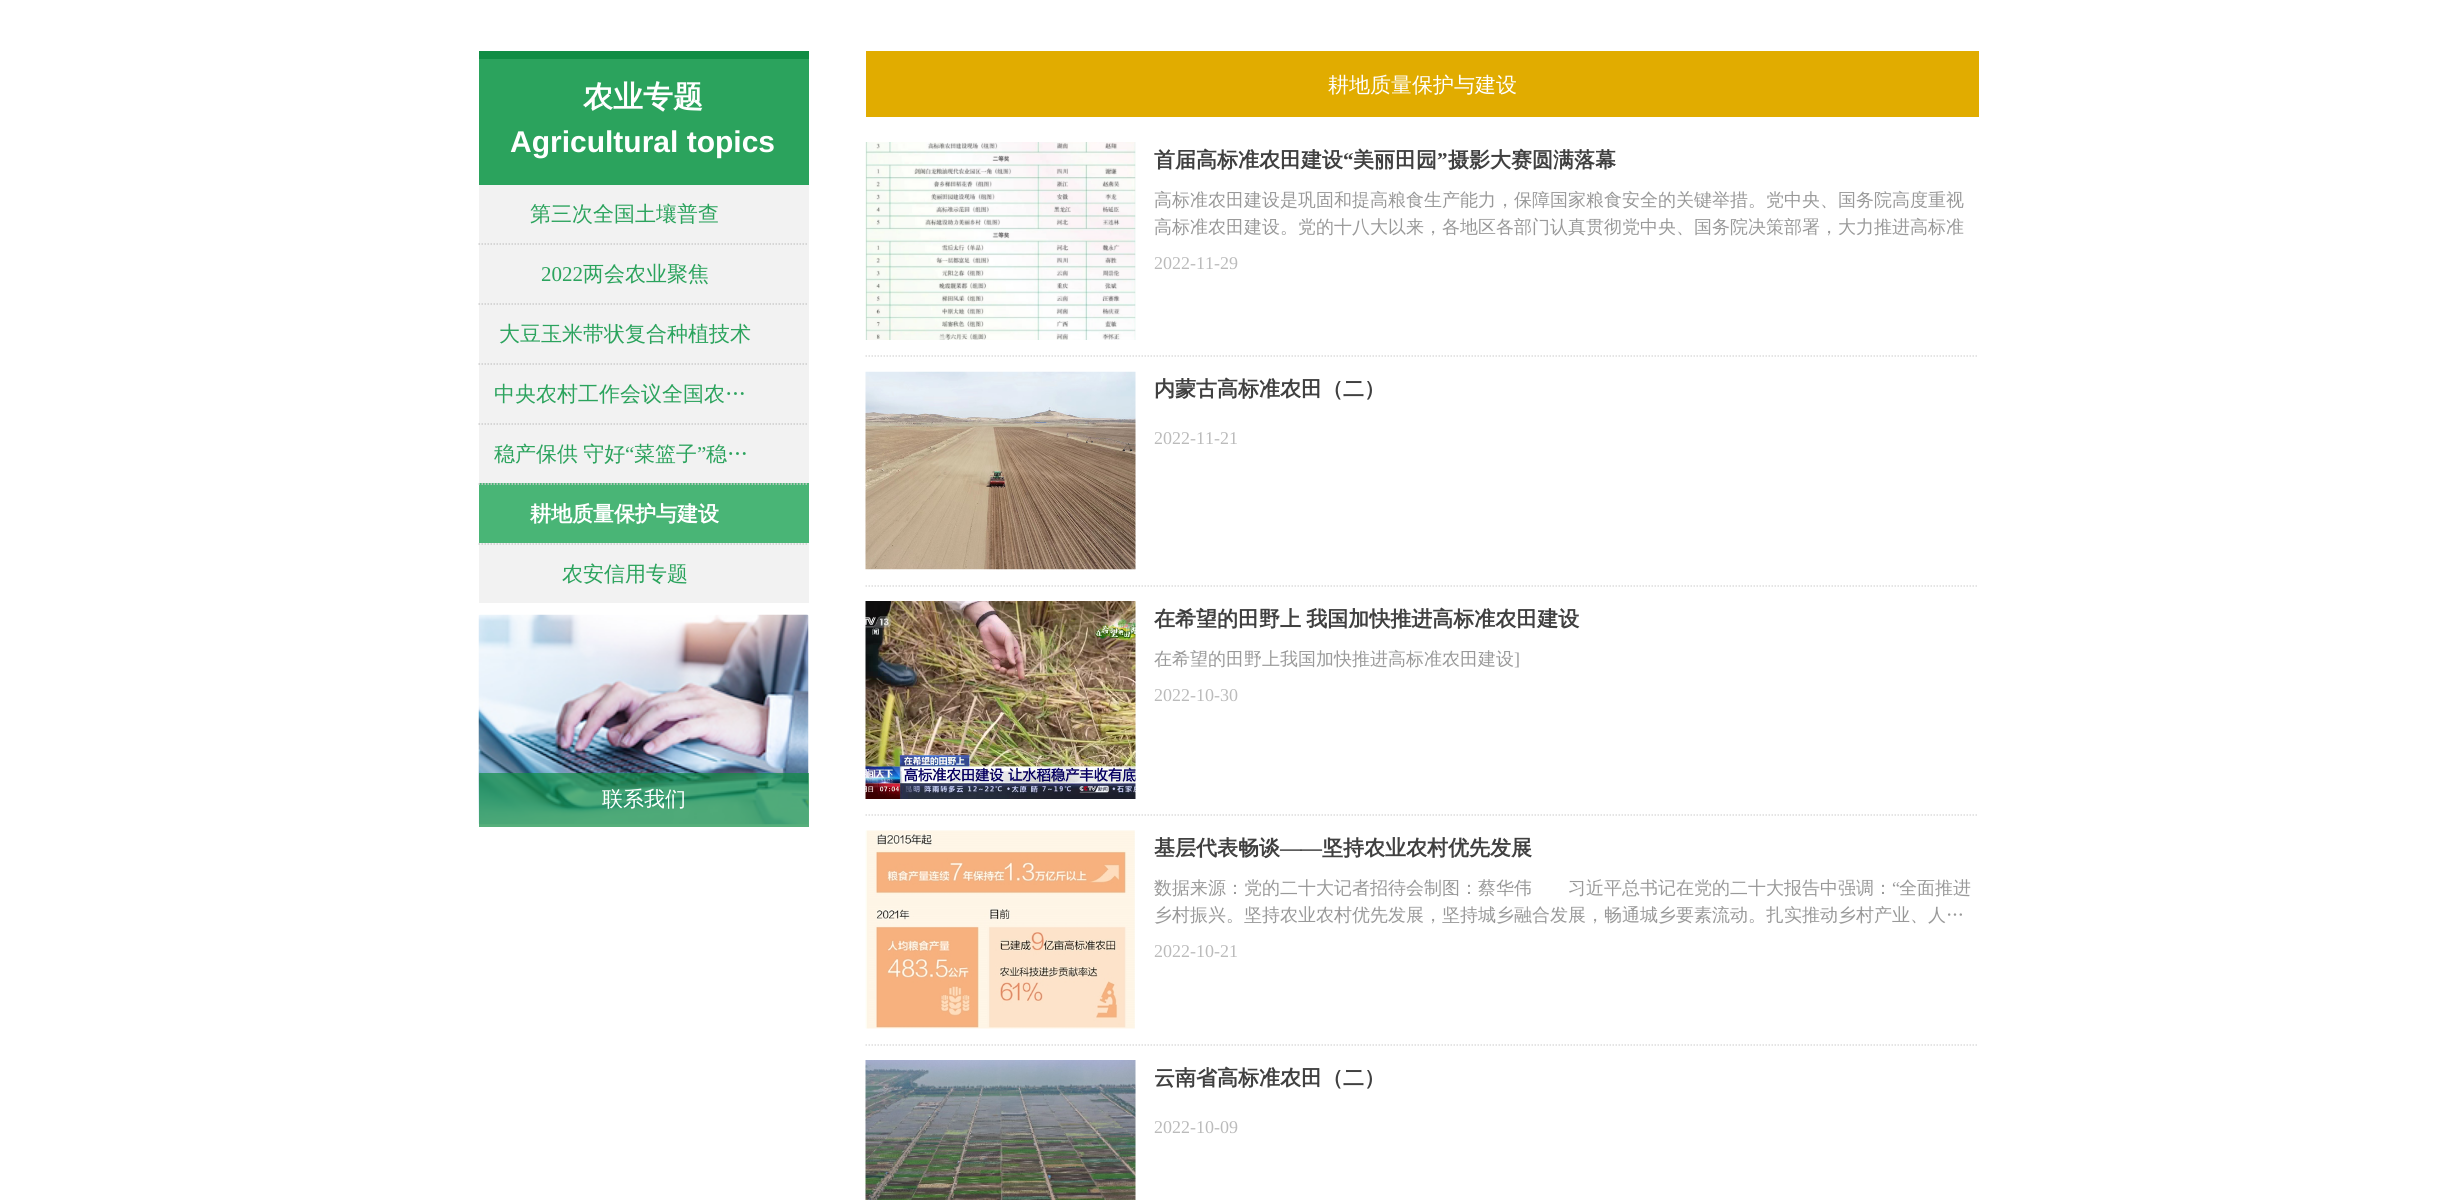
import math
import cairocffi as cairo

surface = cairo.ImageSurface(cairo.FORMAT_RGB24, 2456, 1200)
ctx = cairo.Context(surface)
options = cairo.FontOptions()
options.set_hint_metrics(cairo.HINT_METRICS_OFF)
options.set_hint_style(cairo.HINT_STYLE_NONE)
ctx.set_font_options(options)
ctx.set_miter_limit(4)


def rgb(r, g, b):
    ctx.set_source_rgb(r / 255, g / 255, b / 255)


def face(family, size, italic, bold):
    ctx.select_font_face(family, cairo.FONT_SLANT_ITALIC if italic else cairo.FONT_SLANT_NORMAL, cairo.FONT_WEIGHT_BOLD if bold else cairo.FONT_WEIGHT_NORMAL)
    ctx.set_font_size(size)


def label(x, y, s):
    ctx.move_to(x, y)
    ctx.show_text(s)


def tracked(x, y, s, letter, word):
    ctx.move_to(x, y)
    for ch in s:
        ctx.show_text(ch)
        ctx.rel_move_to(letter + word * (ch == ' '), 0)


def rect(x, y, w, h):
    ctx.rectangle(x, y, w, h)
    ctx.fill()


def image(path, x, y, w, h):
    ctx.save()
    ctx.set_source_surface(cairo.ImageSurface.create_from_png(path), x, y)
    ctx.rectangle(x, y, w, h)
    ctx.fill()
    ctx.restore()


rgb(255, 255, 255)
ctx.paint()
rgb(43, 163, 93)
rect(479, 59, 330, 126)
rgb(16, 141, 68)
rect(479, 51, 330, 8)
face('WenQuanYi Zen Hei', 30, 0, 1)
rgb(255, 255, 255)
label(583, 107, '农业专题')
face('Liberation Sans', 30, 0, 1)
label(510, 152, 'Agricultural topics')
rgb(225, 172, 0)
rect(866, 51, 1113, 66)
face('WenQuanYi Zen Hei Medium', 21, 0, 0)
rgb(255, 255, 255)
label(1328, 92, '耕地质量保护与建设')
rgb(242, 242, 242)
rect(479, 185, 330, 298)
rgb(43, 163, 93)
label(530, 221, '第三次全国土壤普查')
ctx.new_path()
ctx.move_to(478.5, 244)
ctx.line_to(808.5, 244)
rgb(204, 204, 204)
ctx.set_line_width(1.5)
ctx.set_dash([1.5, 1.5])
ctx.stroke()
face('Liberation Serif', 21, 0, 0)
rgb(43, 163, 93)
label(541, 281, '2022')
face('WenQuanYi Zen Hei Medium', 21, 0, 0)
label(583, 281, '两会农业聚焦')
ctx.new_path()
ctx.move_to(478.5, 304)
ctx.line_to(808.5, 304)
rgb(204, 204, 204)
ctx.stroke()
rgb(43, 163, 93)
label(499, 341, '大豆玉米带状复合种植技术')
ctx.new_path()
ctx.move_to(478.5, 364)
ctx.line_to(808.5, 364)
rgb(204, 204, 204)
ctx.stroke()
rgb(43, 163, 93)
label(494, 401, '中央农村工作会议全国农…')
ctx.new_path()
ctx.move_to(478.5, 424)
ctx.line_to(808.5, 424)
rgb(204, 204, 204)
ctx.stroke()
rgb(43, 163, 93)
tracked(494, 461, '稳产保供 守好', 0, -1)
face('Liberation Serif', 21, 0, 0)
label(625, 461, '“')
face('WenQuanYi Zen Hei Medium', 21, 0, 0)
label(634, 461, '菜篮子')
face('Liberation Serif', 21, 0, 0)
label(697, 461, '”')
face('WenQuanYi Zen Hei Medium', 21, 0, 0)
tracked(706, 461, '稳…', 0, -1)
rgb(73, 181, 118)
rect(479, 483, 330, 60)
ctx.new_path()
ctx.move_to(478.5, 484)
ctx.line_to(808.5, 484)
rgb(204, 204, 204)
ctx.stroke()
face('WenQuanYi Zen Hei', 21, 0, 1)
rgb(255, 255, 255)
label(530, 521, '耕地质量保护与建设')
rgb(242, 242, 242)
rect(479, 543, 330, 60)
ctx.new_path()
ctx.move_to(478.5, 544)
ctx.line_to(808.5, 544)
rgb(204, 204, 204)
ctx.stroke()
face('WenQuanYi Zen Hei Medium', 21, 0, 0)
rgb(43, 163, 93)
label(562, 581, '农安信用专题')
ctx.new_path()
ctx.move_to(865.5, 356)
ctx.line_to(1978.5, 356)
rgb(221, 221, 221)
ctx.stroke()
image('image0.png', 865, 142, 271, 198)
face('WenQuanYi Zen Hei', 21, 0, 1)
rgb(64, 64, 64)
label(1154, 167, '首届高标准农田建设')
face('Liberation Serif', 21, 0, 1)
label(1343, 167, '“')
face('WenQuanYi Zen Hei', 21, 0, 1)
label(1353, 167, '美丽田园')
face('Liberation Serif', 21, 0, 1)
label(1437, 167, '”')
face('WenQuanYi Zen Hei', 21, 0, 1)
label(1448, 167, '摄影大赛圆满落幕')
face('WenQuanYi Zen Hei Medium', 18, 0, 0)
rgb(153, 153, 153)
label(1154, 206, '高标准农田建设是巩固和提高粮食生产能力，保障国家粮食安全的关键举措。党中央、国务院高度重视')
label(1154, 233, '高标准农田建设。党的十八大以来，各地区各部门认真贯彻党中央、国务院决策部署，大力推进高标准')
face('Liberation Serif', 18, 0, 0)
rgb(187, 187, 187)
label(1154, 269, '2022-11-29')
ctx.new_path()
ctx.move_to(865.5, 586)
ctx.line_to(1978.5, 586)
rgb(221, 221, 221)
ctx.stroke()
image('image1.png', 865, 371, 271, 199)
face('WenQuanYi Zen Hei', 21, 0, 1)
rgb(64, 64, 64)
label(1154, 396, '内蒙古高标准农田（二）')
face('Liberation Serif', 18, 0, 0)
rgb(187, 187, 187)
label(1154, 444, '2022-11-21')
ctx.new_path()
ctx.move_to(865.5, 815)
ctx.line_to(1978.5, 815)
rgb(221, 221, 221)
ctx.stroke()
image('image2.png', 865, 601, 271, 198)
face('WenQuanYi Zen Hei', 21, 0, 1)
rgb(64, 64, 64)
tracked(1154, 626, '在希望的田野上 我国加快推进高标准农田建设', 0, -1)
face('WenQuanYi Zen Hei Medium', 18, 0, 0)
rgb(153, 153, 153)
label(1154, 665, '在希望的田野上我国加快推进高标准农田建设')
face('Liberation Serif', 18, 0, 0)
label(1514, 665, ']')
rgb(187, 187, 187)
label(1154, 701, '2022-10-30')
ctx.new_path()
ctx.move_to(865.5, 1045)
ctx.line_to(1978.5, 1045)
rgb(221, 221, 221)
ctx.stroke()
image('image3.png', 865, 830, 270, 199)
face('WenQuanYi Zen Hei', 21, 0, 1)
rgb(64, 64, 64)
label(1154, 855, '基层代表畅谈')
face('Liberation Serif', 21, 0, 1)
label(1280, 855, '——')
face('WenQuanYi Zen Hei', 21, 0, 1)
label(1322, 855, '坚持农业农村优先发展')
face('WenQuanYi Zen Hei Medium', 18, 0, 0)
rgb(153, 153, 153)
label(1154, 894, '数据来源：党的二十大记者招待会制图：蔡华伟　　习近平总书记在党的二十大报告中强调：')
face('Liberation Serif', 18, 0, 0)
label(1892, 894, '“')
face('WenQuanYi Zen Hei Medium', 18, 0, 0)
label(1899, 894, '全面推进')
label(1154, 921, '乡村振兴。坚持农业农村优先发展，坚持城乡融合发展，畅通城乡要素流动。扎实推动乡村产业、人…')
face('Liberation Serif', 18, 0, 0)
rgb(187, 187, 187)
label(1154, 957, '2022-10-21')
image('image4.png', 865, 1060, 271, 140)
face('WenQuanYi Zen Hei', 21, 0, 1)
rgb(64, 64, 64)
label(1154, 1085, '云南省高标准农田（二）')
face('Liberation Serif', 18, 0, 0)
rgb(187, 187, 187)
label(1154, 1133, '2022-10-09')
image('image5.png', 478, 614, 331, 211)
ctx.set_source_rgba(0.063, 0.553, 0.267, 0.7)
rect(479, 773, 330, 54)
face('WenQuanYi Zen Hei Medium', 21, 0, 0)
rgb(255, 255, 255)
label(602, 806, '联系我们')
surface.write_to_png('render.png')
